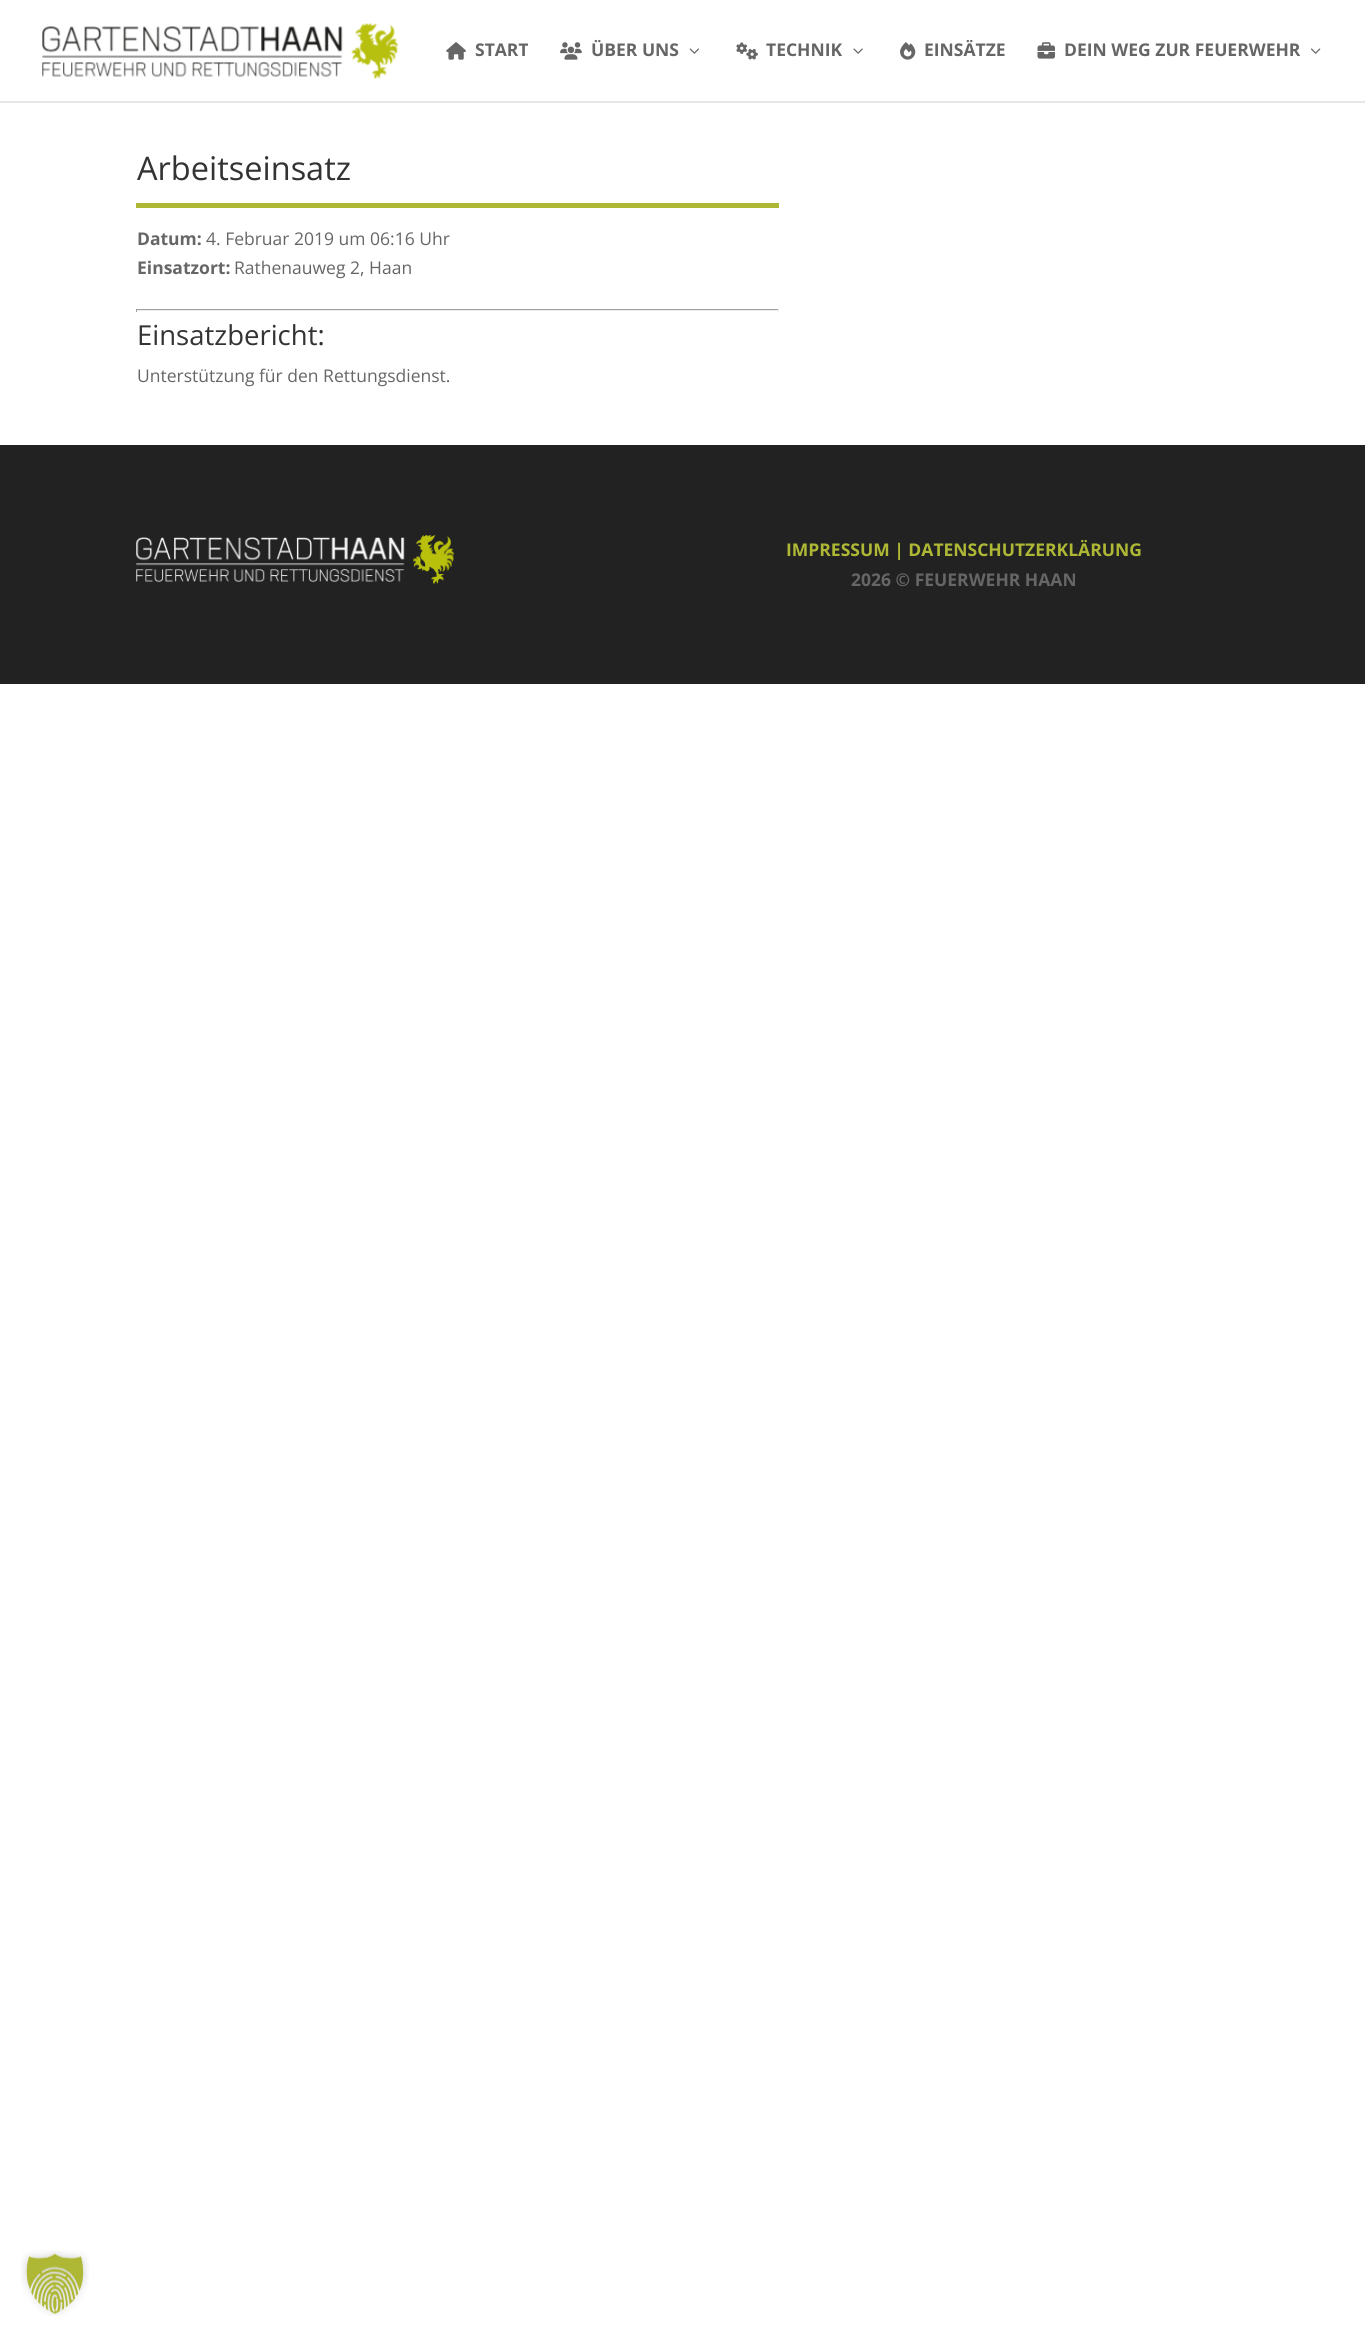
import math
import cairocffi as cairo

surface = cairo.ImageSurface(cairo.FORMAT_RGB24, 1365, 2338)
ctx = cairo.Context(surface)
options = cairo.FontOptions()
options.set_hint_metrics(cairo.HINT_METRICS_OFF)
options.set_hint_style(cairo.HINT_STYLE_NONE)
ctx.set_font_options(options)
ctx.set_miter_limit(4)


def rgb(r, g, b):
    ctx.set_source_rgb(r / 255, g / 255, b / 255)


def face(family, size, italic, bold):
    ctx.select_font_face(family, cairo.FONT_SLANT_ITALIC if italic else cairo.FONT_SLANT_NORMAL, cairo.FONT_WEIGHT_BOLD if bold else cairo.FONT_WEIGHT_NORMAL)
    ctx.set_font_size(size)


def label(x, y, s):
    ctx.move_to(x, y)
    ctx.show_text(s)


def rect(x, y, w, h):
    ctx.rectangle(x, y, w, h)
    ctx.fill()


def image(path, x, y, w, h):
    ctx.save()
    ctx.set_source_surface(cairo.ImageSurface.create_from_png(path), x, y)
    ctx.rectangle(x, y, w, h)
    ctx.fill()
    ctx.restore()


rgb(255, 255, 255)
ctx.paint()
rgb(230, 230, 230)
rect(0, 101, 1365, 2)
image('image0.png', 42, 23, 357, 57)
image('image1.png', 446, 42, 20, 18)
face('Open Sans', 17.5, 0, 1)
rgb(102, 102, 102)
label(475, 56, 'START')
image('image2.png', 560, 42, 22, 18)
label(591, 56, 'ÜBER UNS')
image('image3.png', 689, 48, 10, 6)
image('image4.png', 736, 42, 22, 18)
label(766, 56, 'TECHNIK')
image('image5.png', 853, 48, 10, 6)
image('image6.png', 900, 42, 16, 18)
label(924, 56, 'EINSÄTZE')
image('image7.png', 1037, 42, 18, 17)
label(1064, 56, 'DEIN WEG ZUR FEUERWEHR')
image('image8.png', 1311, 48, 10, 6)
rgb(174, 184, 53)
rect(136, 203, 643, 5)
face('Open Sans', 32.5, 0, 0)
rgb(51, 51, 51)
label(137, 180, 'Arbeitseinsatz')
face('Open Sans', 17.5, 0, 1)
rgb(102, 102, 102)
label(137, 245, 'Datum:')
face('Open Sans', 17.5, 0, 0)
label(206, 245, '4. Februar 2019 um 06:16 Uhr')
face('Open Sans', 17.5, 0, 1)
label(137, 274, 'Einsatzort:')
face('Open Sans', 17.5, 0, 0)
label(234, 274, 'Rathenauweg 2, Haan')
rgb(159, 159, 159)
rect(136, 309, 643, 1)
rgb(238, 238, 238)
rect(778, 309, 1, 3)
rect(136, 310, 643, 1)
rgb(159, 159, 159)
rect(136, 309, 1, 3)
face('Open Sans', 27.5, 0, 0)
rgb(51, 51, 51)
label(137, 345, 'Einsatzbericht:')
face('Open Sans', 17.5, 0, 0)
rgb(102, 102, 102)
label(137, 382, 'Unterstützung für den Rettungsdienst.')
rgb(34, 34, 34)
rect(0, 445, 1365, 239)
image('image9.png', 136, 535, 318, 49)
face('Open Sans', 17.5, 0, 1)
rgb(174, 184, 53)
label(786, 556, 'IMPRESSUM | DATENSCHUTZERKLÄRUNG')
rgb(102, 102, 102)
label(851, 586, '2026 © FEUERWEHR HAAN')
image('image10.png', 21, 2250, 68, 66)
surface.write_to_png('render.png')
